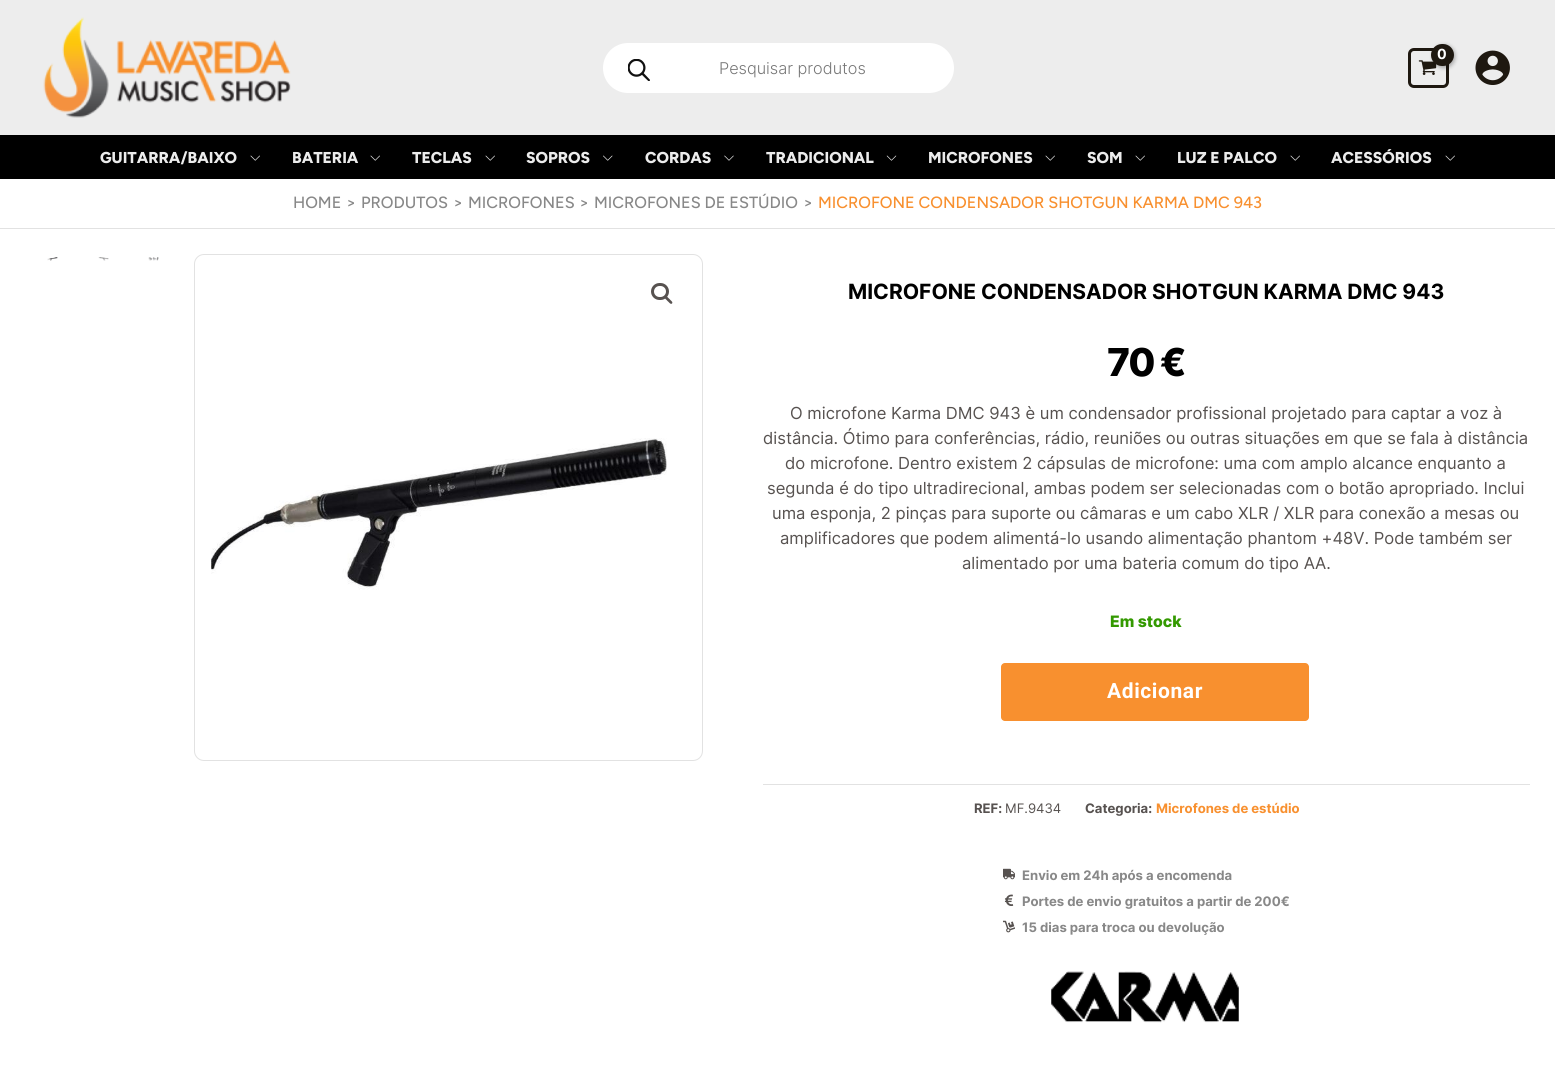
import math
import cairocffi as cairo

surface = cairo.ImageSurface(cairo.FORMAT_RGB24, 1555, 1088)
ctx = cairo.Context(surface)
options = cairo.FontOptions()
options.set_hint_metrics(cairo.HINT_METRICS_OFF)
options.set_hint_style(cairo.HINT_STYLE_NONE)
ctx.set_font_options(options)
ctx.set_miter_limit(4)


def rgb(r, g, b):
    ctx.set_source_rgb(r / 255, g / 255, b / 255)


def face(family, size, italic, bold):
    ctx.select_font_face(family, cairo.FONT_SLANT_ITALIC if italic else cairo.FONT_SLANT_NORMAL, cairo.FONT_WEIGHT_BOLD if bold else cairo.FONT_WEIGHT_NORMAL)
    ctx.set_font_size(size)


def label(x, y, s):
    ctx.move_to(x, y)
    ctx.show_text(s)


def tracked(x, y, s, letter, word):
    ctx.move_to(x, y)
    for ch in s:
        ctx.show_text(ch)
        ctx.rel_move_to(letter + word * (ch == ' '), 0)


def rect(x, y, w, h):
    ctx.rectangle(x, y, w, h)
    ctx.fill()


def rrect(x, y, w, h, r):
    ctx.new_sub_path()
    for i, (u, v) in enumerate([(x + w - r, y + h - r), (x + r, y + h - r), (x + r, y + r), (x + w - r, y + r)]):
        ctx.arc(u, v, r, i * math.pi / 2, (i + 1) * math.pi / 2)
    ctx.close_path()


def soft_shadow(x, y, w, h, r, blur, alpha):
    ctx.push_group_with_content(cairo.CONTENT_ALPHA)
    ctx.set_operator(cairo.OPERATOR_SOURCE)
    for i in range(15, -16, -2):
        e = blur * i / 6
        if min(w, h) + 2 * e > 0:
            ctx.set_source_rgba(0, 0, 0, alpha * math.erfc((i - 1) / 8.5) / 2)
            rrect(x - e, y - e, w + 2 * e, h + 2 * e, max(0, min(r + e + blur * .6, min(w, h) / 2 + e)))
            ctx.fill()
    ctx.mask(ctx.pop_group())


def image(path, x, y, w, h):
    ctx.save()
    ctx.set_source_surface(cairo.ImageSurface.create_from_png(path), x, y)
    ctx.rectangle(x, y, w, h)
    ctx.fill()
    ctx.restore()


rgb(255, 255, 255)
ctx.paint()
rgb(237, 237, 237)
rect(0, 0, 1555, 135)
image('image0.png', 43, 17, 248, 101)
rrect(1409.5, 49.5, 38, 37, 4.5)
rgb(30, 24, 16)
ctx.set_line_width(3)
ctx.stroke()
image('image1.png', 1418, 60, 19, 15)
rgb(0, 0, 0)
soft_shadow(1433, 45, 22, 23, 11, 2, 0.3)
rgb(30, 24, 16)
rrect(1431, 44, 23, 22, 11)
ctx.fill()
face('Inter', 14, 0, 1)
rgb(255, 255, 255)
tracked(1437, 59, '0', -1, 0)
image('image2.png', 1475, 50, 35, 35)
rrect(603, 43, 351, 50, 25)
ctx.fill()
image('image3.png', 628, 59, 22, 22)
face('Inter Light', 16.25, 0, 0)
rgb(119, 119, 119)
label(719, 74, 'Pesquisar produtos')
rgb(0, 0, 0)
rect(0, 135, 1555, 44)
face('Figtree ExtraBold', 15.75, 0, 0)
rgb(236, 236, 236)
label(100, 163, 'GUITARRA/BAIXO')
image('image4.png', 250, 155, 10, 6)
label(292, 163, 'BATERIA')
image('image4.png', 370, 155, 10, 6)
label(412, 163, 'TECLAS')
image('image4.png', 485, 155, 10, 6)
label(526, 163, 'SOPROS')
image('image5.png', 603, 155, 10, 6)
label(645, 163, 'CORDAS')
image('image6.png', 724, 155, 10, 6)
label(766, 163, 'TRADICIONAL')
image('image7.png', 886, 155, 11, 6)
label(928, 163, 'MICROFONES')
image('image4.png', 1045, 155, 10, 6)
label(1087, 163, 'SOM')
image('image4.png', 1135, 155, 10, 6)
label(1177, 163, 'LUZ E PALCO')
image('image4.png', 1290, 155, 10, 6)
label(1331, 163, 'ACESSÓRIOS')
image('image4.png', 1445, 155, 10, 6)
rgb(226, 226, 226)
rect(0, 228, 1555, 1)
face('Figtree Medium', 16.25, 0, 0)
rgb(136, 136, 136)
label(293, 208, 'HOME')
label(346, 208, '>')
label(361, 208, 'PRODUTOS')
label(453, 208, '>')
label(468, 208, 'MICROFONES')
label(579, 208, '>')
label(594, 208, 'MICROFONES DE ESTÚDIO')
label(803, 208, '>')
rgb(248, 144, 47)
label(818, 208, 'MICROFONE CONDENSADOR SHOTGUN KARMA DMC 943')
image('image8.png', 47, 257, 11, 4)
image('image9.png', 98, 257, 11, 4)
image('image10.png', 148, 257, 11, 4)
rrect(194.5, 254.5, 508, 506, 9.5)
rgb(226, 226, 226)
ctx.set_line_width(1)
ctx.stroke()
image('image11.png', 211, 438, 456, 152)
rrect(652.5, 284.5, 15, 14, 7)
rgb(87, 82, 80)
ctx.set_line_width(3)
ctx.stroke()
ctx.new_path()
ctx.move_to(665, 296.5)
ctx.curve_to(666.5, 295, 668.5, 298.5, 669.5, 299)
ctx.curve_to(670, 300, 673.5, 302, 672, 303.5)
ctx.curve_to(670.5, 305, 668.5, 301.5, 667.5, 301)
ctx.curve_to(667, 300, 663.5, 298, 665, 296.5)
ctx.close_path()
ctx.fill()
face('Inter', 21, 0, 1)
rgb(0, 0, 0)
label(848, 299, 'MICROFONE CONDENSADOR SHOTGUN KARMA DMC 943')
face('Inter ExtraBold', 38.5, 0, 0)
tracked(1107, 376, '70 €', -2, 0)
face('Inter', 16.6, 0, 0)
rgb(87, 82, 80)
label(790, 419, 'O microfone Karma DMC 943 è um condensador profissional projetado para captar a voz à')
label(763, 444, 'distância. Ótimo para conferências, rádio, reuniões ou outras situações em que se fala à distância')
label(785, 469, 'do microfone. Dentro existem 2 cápsulas de microfone: uma com amplo alcance enquanto a')
label(767, 494, 'segunda é do tipo ultradirecional, ambas podem ser selecionadas com o botão apropriado. Inclui')
label(772, 519, 'uma esponja, 2 pinças para suporte ou câmaras e um cabo XLR / XLR para conexão a mesas ou')
label(780, 544, 'amplificadores que podem alimentá-lo usando alimentação phantom +48V. Pode também ser')
label(962, 569, 'alimentado por uma bateria comum do tipo AA.')
face('Inter ExtraBold', 15.75, 0, 0)
rgb(51, 153, 0)
label(1110, 627, 'Em stock')
rgb(248, 144, 47)
rrect(1001, 663, 308, 58, 4)
ctx.fill()
face('Roboto', 21, 0, 1)
rgb(255, 255, 255)
tracked(1107, 698, 'Adicionar', 0.6, 0)
rgb(226, 226, 226)
rect(763, 784, 767, 1)
face('Inter', 13.1, 0, 1)
rgb(87, 82, 80)
label(974, 813, 'REF:')
face('Inter', 13.1, 0, 0)
label(1005, 813, 'MF.9434')
face('Inter', 13.1, 0, 1)
label(1085, 813, 'Categoria:')
rgb(248, 144, 47)
label(1156, 813, 'Microfones de estúdio')
image('image12.png', 1003, 868, 12, 12)
rgb(136, 136, 136)
label(1022, 880, 'Envio em 24h após a encomenda')
image('image13.png', 1004, 894, 10, 12)
label(1022, 906, 'Portes de envio gratuitos a partir de 200€')
image('image14.png', 1003, 920, 12, 13)
label(1022, 932, '15 dias para troca ou devolução')
image('image15.png', 1051, 971, 188, 52)
surface.write_to_png('render.png')
